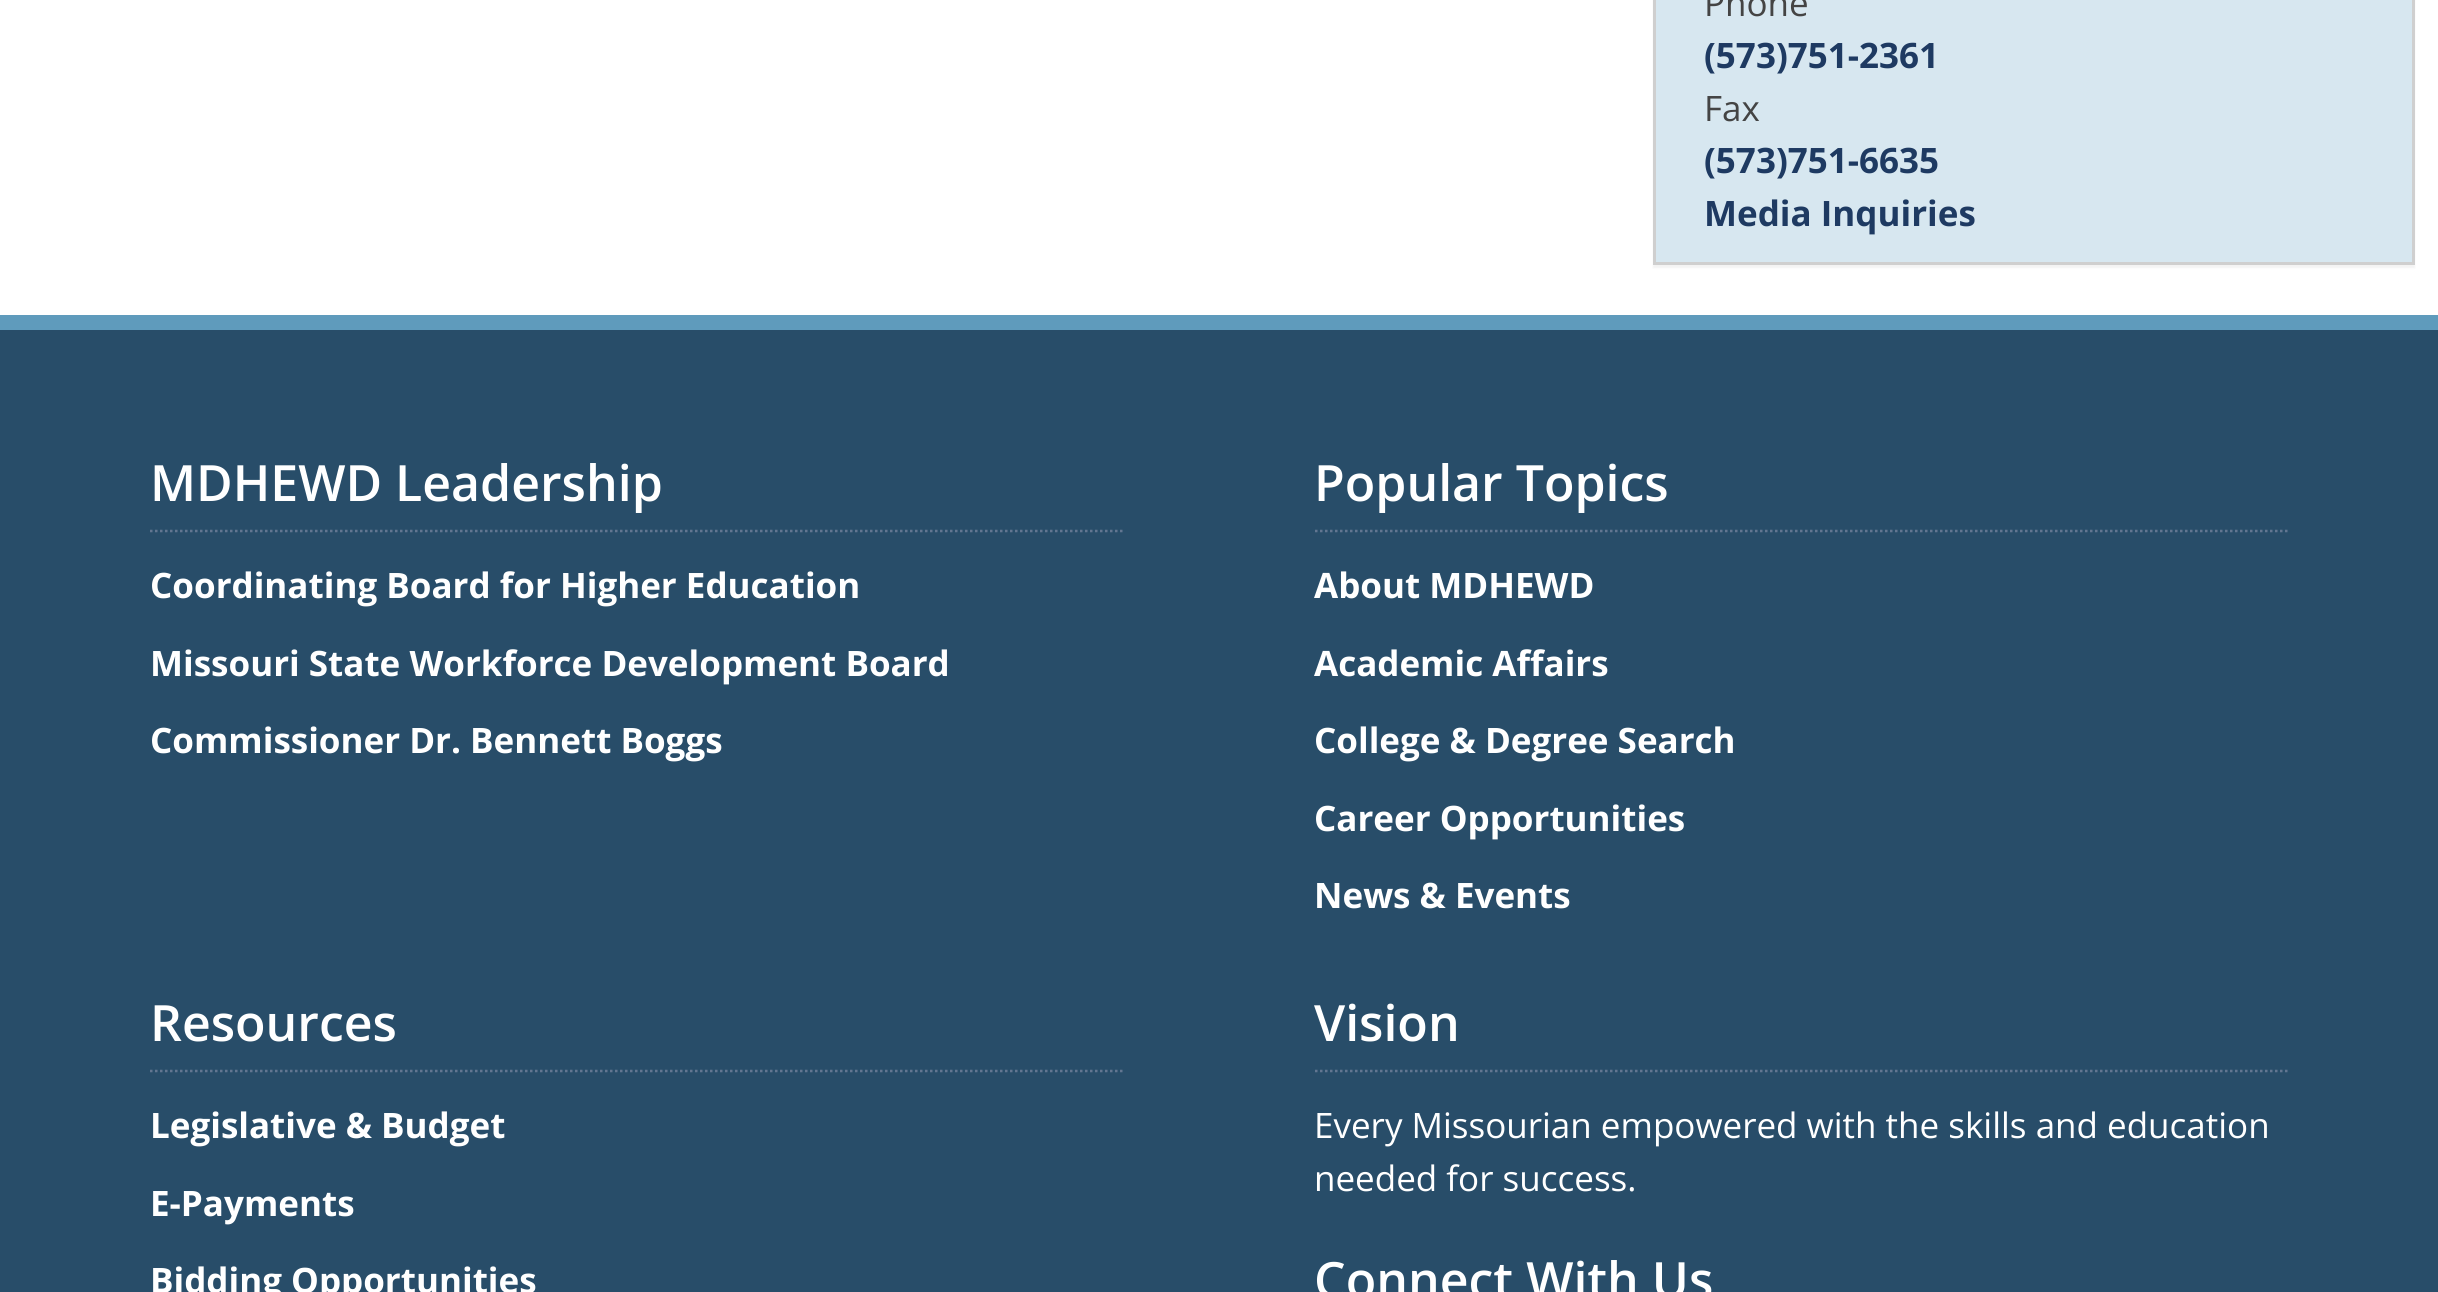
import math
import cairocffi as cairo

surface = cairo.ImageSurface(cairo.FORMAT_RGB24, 2438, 1292)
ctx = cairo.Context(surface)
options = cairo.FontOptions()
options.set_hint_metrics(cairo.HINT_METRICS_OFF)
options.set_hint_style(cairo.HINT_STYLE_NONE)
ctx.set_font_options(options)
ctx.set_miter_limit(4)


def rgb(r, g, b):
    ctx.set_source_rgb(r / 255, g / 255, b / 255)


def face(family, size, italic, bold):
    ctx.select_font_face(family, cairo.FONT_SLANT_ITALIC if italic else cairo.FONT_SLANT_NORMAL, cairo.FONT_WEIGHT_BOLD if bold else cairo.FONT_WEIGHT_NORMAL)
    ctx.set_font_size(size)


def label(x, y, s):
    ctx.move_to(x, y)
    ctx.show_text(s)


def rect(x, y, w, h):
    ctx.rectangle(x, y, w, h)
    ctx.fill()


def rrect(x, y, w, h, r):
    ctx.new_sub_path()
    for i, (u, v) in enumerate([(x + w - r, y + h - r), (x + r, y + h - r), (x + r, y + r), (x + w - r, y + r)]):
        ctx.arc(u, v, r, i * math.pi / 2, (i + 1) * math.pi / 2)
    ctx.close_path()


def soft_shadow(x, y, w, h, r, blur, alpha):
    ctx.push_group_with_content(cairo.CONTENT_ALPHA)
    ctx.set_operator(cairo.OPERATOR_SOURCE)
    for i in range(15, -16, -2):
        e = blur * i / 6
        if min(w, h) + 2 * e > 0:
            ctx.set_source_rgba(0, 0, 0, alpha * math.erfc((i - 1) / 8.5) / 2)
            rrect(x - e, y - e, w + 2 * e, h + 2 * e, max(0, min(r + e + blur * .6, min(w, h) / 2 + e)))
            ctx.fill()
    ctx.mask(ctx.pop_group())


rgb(255, 255, 255)
ctx.paint()
rgb(0, 0, 0)
soft_shadow(1653, -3, 762, 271, 0, 1, 0.05)
rgb(215, 231, 240)
ctx.rectangle(1654.5, -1.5, 759, 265)
ctx.fill_preserve()
rgb(207, 207, 207)
ctx.set_line_width(3)
ctx.stroke()
face('Open Sans', 35, 0, 0)
rgb(68, 68, 68)
label(1704, 16, 'Phone')
face('Open Sans', 35, 0, 1)
rgb(30, 58, 98)
label(1704, 68, '(573)751-2361')
face('Open Sans', 35, 0, 0)
rgb(68, 68, 68)
label(1704, 121, 'Fax')
face('Open Sans', 35, 0, 1)
rgb(30, 58, 98)
label(1704, 173, '(573)751-6635')
label(1704, 226, 'Media Inquiries')
rgb(40, 77, 105)
rect(0, 330, 2438, 962)
rgb(95, 155, 188)
rect(0, 315, 2438, 15)
ctx.new_path()
ctx.move_to(150, 531)
ctx.line_to(1125, 531)
rgb(98, 118, 145)
ctx.set_line_width(2.5)
ctx.set_dash([2.5, 2.5])
ctx.stroke()
face('Open Sans SemiBold', 50, 0, 0)
rgb(255, 255, 255)
label(150, 501, 'MDHEWD Leadership')
face('Open Sans', 35, 0, 1)
label(150, 598, 'Coordinating Board for Higher Education')
label(150, 676, 'Missouri State Workforce Development Board')
label(150, 753, 'Commissioner Dr. Bennett Boggs')
ctx.new_path()
ctx.move_to(1315, 531)
ctx.line_to(2290, 531)
rgb(98, 118, 145)
ctx.stroke()
face('Open Sans SemiBold', 50, 0, 0)
rgb(255, 255, 255)
label(1314, 501, 'Popular Topics')
face('Open Sans', 35, 0, 1)
label(1314, 598, 'About MDHEWD')
label(1314, 676, 'Academic Affairs')
label(1314, 753, 'College & Degree Search')
label(1314, 831, 'Career Opportunities')
label(1314, 908, 'News & Events')
ctx.new_path()
ctx.move_to(150, 1071)
ctx.line_to(1125, 1071)
rgb(98, 118, 145)
ctx.stroke()
face('Open Sans SemiBold', 50, 0, 0)
rgb(255, 255, 255)
label(150, 1041, 'Resources')
face('Open Sans', 35, 0, 1)
label(150, 1138, 'Legislative & Budget')
label(150, 1216, 'E-Payments')
label(150, 1293, 'Bidding Opportunities')
ctx.new_path()
ctx.move_to(1315, 1071)
ctx.line_to(2290, 1071)
rgb(98, 118, 145)
ctx.stroke()
face('Open Sans SemiBold', 50, 0, 0)
rgb(255, 255, 255)
label(1314, 1041, 'Vision')
face('Open Sans', 35, 0, 0)
label(1314, 1138, 'Every Missourian empowered with the skills and education')
label(1314, 1191, 'needed for success.')
face('Open Sans SemiBold', 50, 0, 0)
label(1314, 1298, 'Connect With Us')
surface.write_to_png('render.png')
